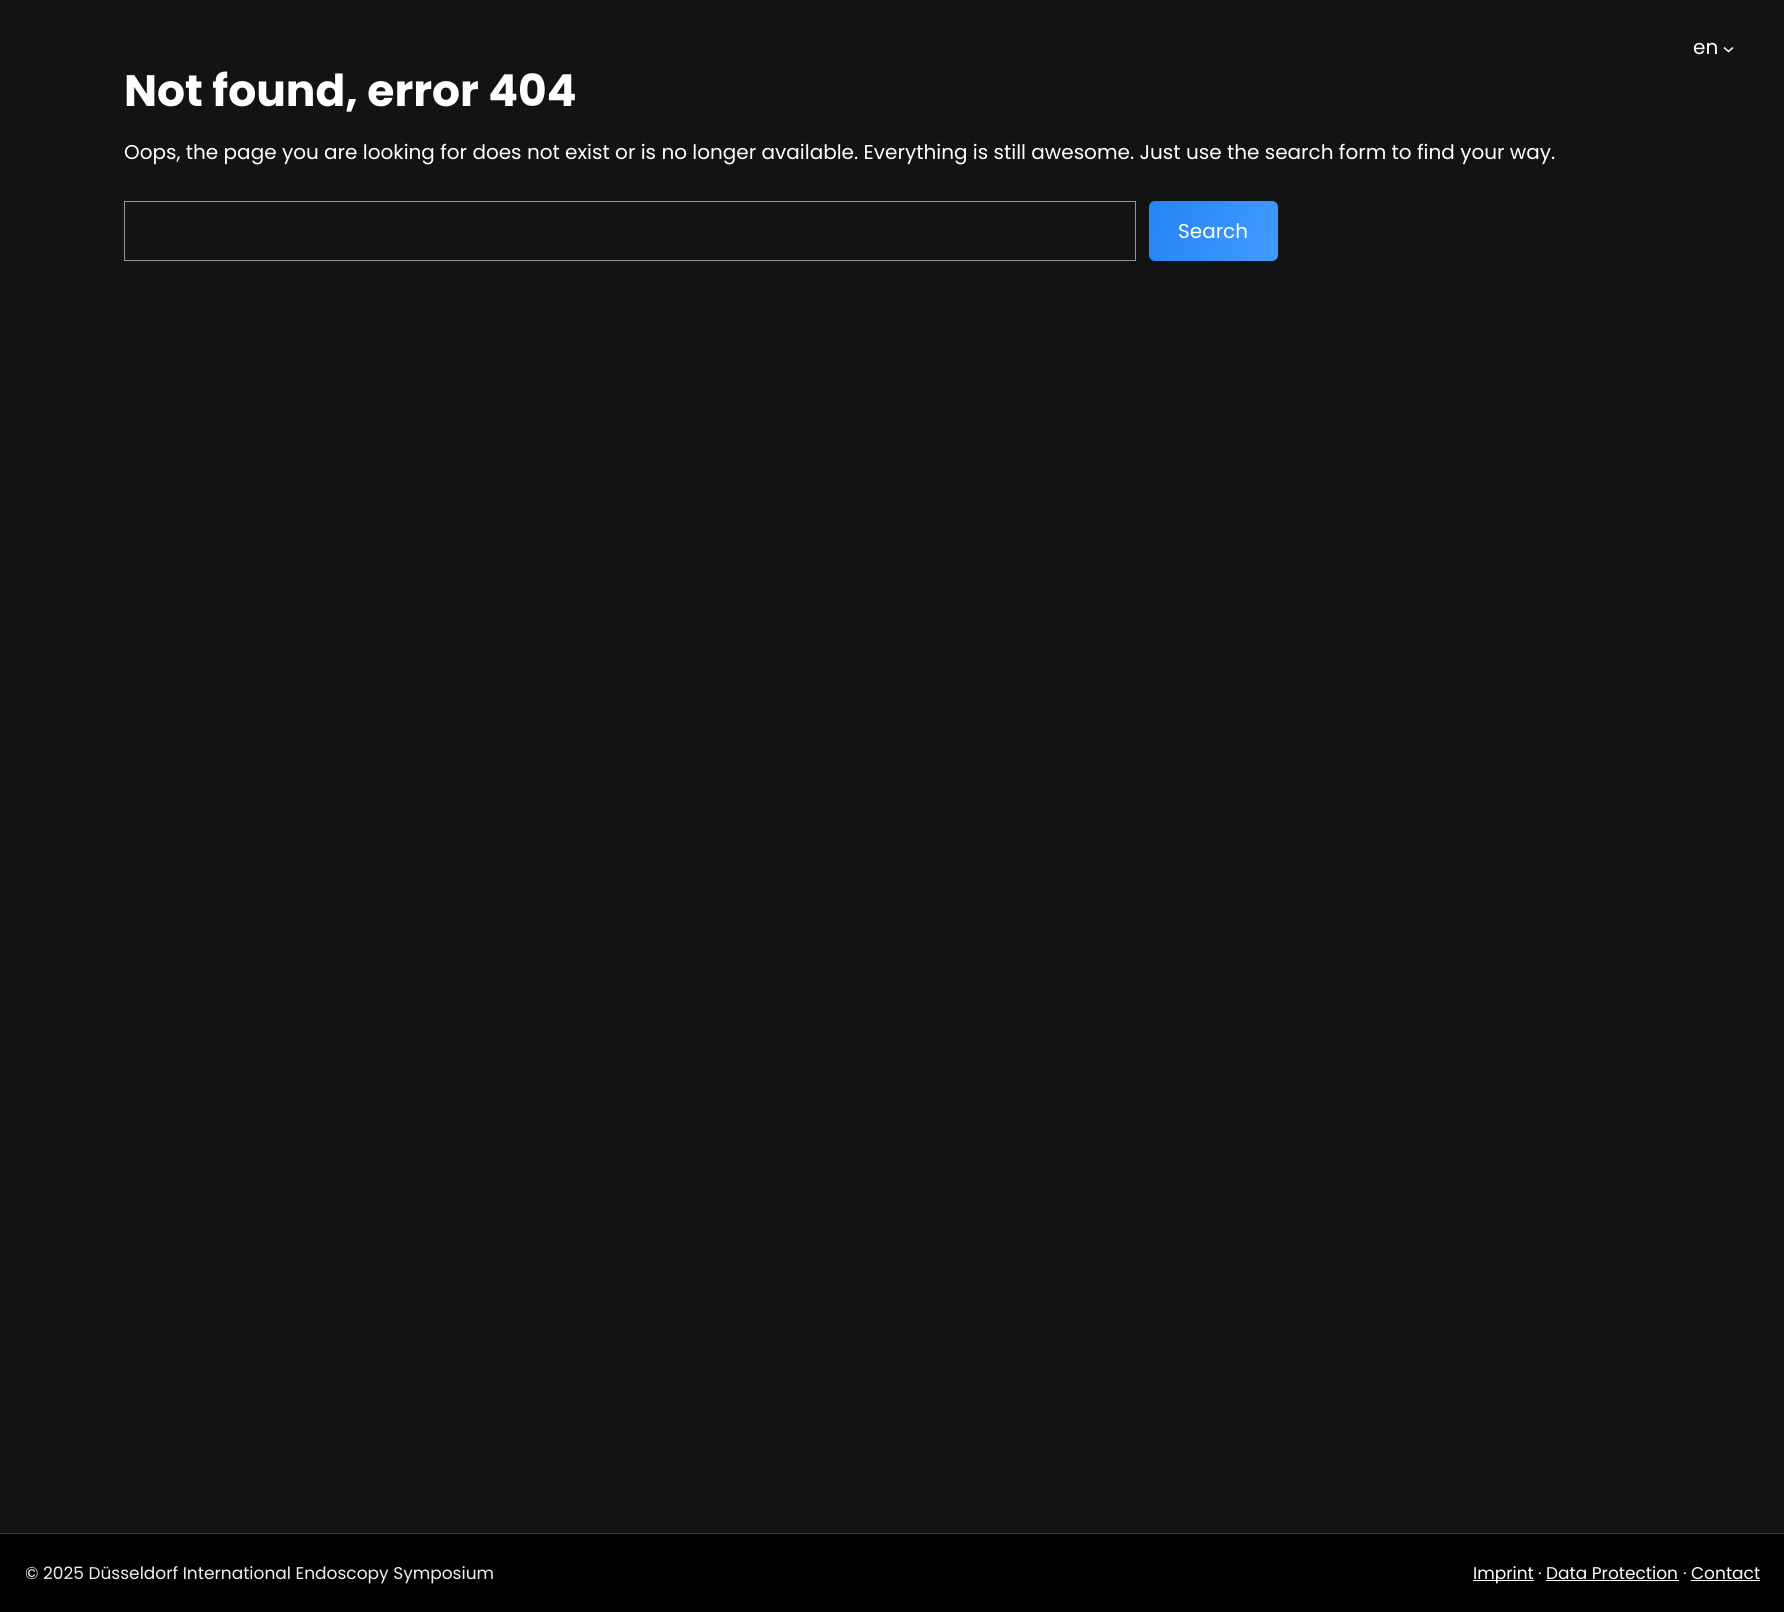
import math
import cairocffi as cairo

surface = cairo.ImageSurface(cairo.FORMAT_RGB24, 1784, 1612)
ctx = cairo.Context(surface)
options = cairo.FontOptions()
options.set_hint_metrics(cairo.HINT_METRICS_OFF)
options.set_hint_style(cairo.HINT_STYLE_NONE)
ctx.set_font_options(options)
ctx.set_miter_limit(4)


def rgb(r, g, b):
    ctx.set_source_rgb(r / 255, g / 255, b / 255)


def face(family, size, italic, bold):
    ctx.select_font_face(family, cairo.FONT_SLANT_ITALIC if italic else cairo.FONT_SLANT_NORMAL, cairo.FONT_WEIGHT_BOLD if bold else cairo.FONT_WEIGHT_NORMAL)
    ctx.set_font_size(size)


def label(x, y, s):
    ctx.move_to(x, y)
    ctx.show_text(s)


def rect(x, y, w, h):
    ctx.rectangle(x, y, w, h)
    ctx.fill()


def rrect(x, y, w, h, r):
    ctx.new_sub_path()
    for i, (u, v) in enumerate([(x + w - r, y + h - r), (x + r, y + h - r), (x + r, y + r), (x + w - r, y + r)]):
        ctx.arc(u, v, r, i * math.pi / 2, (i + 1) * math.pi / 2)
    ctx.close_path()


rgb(18, 19, 20)
ctx.paint()
face('Poppins', 20, 0, 0)
rgb(255, 255, 253)
label(1693, 54, 'en')
ctx.new_path()
ctx.move_to(1724, 47.5)
ctx.line_to(1728.5, 51.5)
ctx.line_to(1733, 47.5)
ctx.set_line_width(1.5)
ctx.stroke()
face('Poppins', 44, 0, 1)
label(124, 106, 'Not found, error 404')
face('Poppins', 20, 0, 0)
label(124, 159, 'Oops, the page you are looking for does not exist or is no longer available. Everything is still awesome. Just use the search form to find your way.')
ctx.rectangle(124.5, 201.5, 1011, 59)
rgb(148, 148, 148)
ctx.set_line_width(1)
ctx.stroke()
gradient = cairo.LinearGradient(1147, 206, 1279, 257)
gradient.add_color_stop_rgba(0, 0.145, 0.522, 0.961, 1)
gradient.add_color_stop_rgba(1, 0.255, 0.604, 1, 1)
ctx.set_source(gradient)
rrect(1149, 201, 129, 60, 6)
ctx.fill()
rgb(255, 255, 253)
label(1178, 238, 'Search')
rgb(0, 0, 0)
rect(0, 1534, 1784, 78)
rgb(56, 56, 56)
rect(0, 1533, 1784, 1)
face('Poppins', 17, 0, 0)
rgb(240, 240, 240)
label(25, 1579, '© 2025 Düsseldorf International Endoscopy Symposium')
rgb(255, 255, 255)
rect(1473, 1580, 61, 1)
rgb(255, 255, 253)
label(1473, 1579, 'Imprint')
rgb(240, 240, 240)
label(1538, 1579, '·')
rgb(255, 255, 253)
label(1546, 1579, 'Data Protection')
rgb(255, 255, 255)
rect(1546, 1580, 133, 1)
rgb(240, 240, 240)
label(1683, 1579, '·')
rgb(255, 255, 253)
label(1691, 1579, 'Contact')
rgb(255, 255, 255)
rect(1691, 1580, 69, 1)
surface.write_to_png('render.png')
